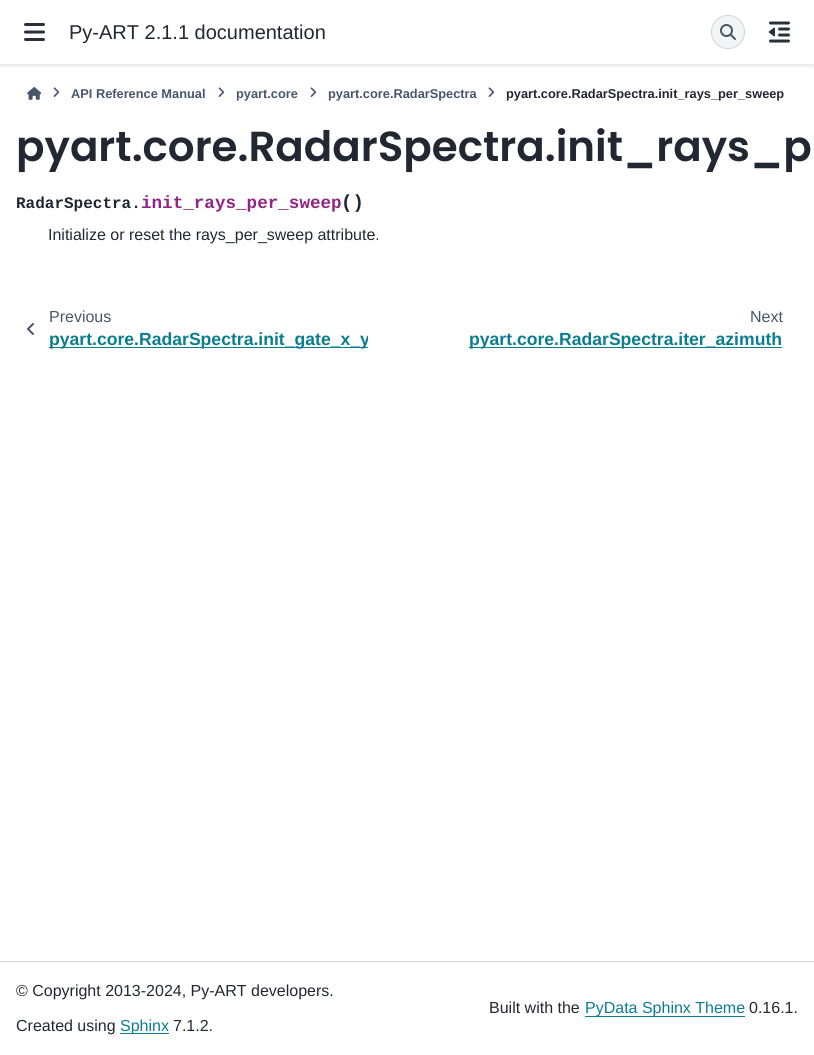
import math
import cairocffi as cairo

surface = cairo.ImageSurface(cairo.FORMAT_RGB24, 814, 1055)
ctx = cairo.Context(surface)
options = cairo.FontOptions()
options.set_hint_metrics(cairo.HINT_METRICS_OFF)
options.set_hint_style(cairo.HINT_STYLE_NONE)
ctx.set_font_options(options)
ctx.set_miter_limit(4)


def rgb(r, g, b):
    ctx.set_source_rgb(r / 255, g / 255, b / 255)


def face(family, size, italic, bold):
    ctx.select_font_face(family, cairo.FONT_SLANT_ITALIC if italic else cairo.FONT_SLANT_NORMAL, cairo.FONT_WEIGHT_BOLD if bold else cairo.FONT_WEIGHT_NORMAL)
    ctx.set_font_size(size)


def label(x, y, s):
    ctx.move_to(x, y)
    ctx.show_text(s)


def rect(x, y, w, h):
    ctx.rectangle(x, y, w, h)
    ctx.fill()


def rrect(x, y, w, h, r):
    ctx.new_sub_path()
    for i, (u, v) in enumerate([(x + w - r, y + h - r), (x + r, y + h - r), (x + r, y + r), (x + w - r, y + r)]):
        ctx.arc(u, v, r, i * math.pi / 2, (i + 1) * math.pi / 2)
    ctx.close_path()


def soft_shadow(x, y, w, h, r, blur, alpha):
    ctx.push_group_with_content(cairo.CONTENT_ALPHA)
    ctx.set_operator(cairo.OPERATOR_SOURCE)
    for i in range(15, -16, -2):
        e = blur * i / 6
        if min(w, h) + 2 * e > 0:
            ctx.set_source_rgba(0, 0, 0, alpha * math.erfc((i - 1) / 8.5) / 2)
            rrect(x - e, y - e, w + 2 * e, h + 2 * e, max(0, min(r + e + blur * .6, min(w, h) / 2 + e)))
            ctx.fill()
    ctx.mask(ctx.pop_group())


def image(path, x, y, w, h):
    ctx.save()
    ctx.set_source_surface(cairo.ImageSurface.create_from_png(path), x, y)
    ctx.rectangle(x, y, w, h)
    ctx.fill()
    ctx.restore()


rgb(255, 255, 255)
ctx.paint()
ctx.save()
ctx.rectangle(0, 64, 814, 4)
ctx.clip()
rgb(0, 0, 0)
soft_shadow(0, 2, 814, 64, 0, 2, 0.1)
ctx.restore()
image('image0.png', 24, 23, 21, 18)
face('Liberation Sans', 20, 0, 0)
rgb(34, 40, 50)
label(69, 39, 'Py-ART 2.1.1 documentation')
rgb(243, 244, 245)
ctx.new_path()
ctx.arc(728, 32, 16.5, 0, 2 * math.pi)
ctx.fill_preserve()
rgb(209, 213, 218)
ctx.set_line_width(1)
ctx.stroke()
image('image1.png', 720, 24, 16, 16)
image('image2.png', 768, 21, 22, 22)
image('image3.png', 27, 87, 14, 13)
image('image4.png', 53, 87, 7, 10)
face('Liberation Sans', 12.8, 0, 1)
rgb(72, 86, 107)
label(71, 98, 'API Reference Manual')
image('image4.png', 218, 87, 7, 10)
label(236, 98, 'pyart.core')
image('image4.png', 310, 87, 7, 10)
label(328, 98, 'pyart.core.RadarSpectra')
image('image4.png', 488, 87, 7, 10)
rgb(34, 40, 50)
label(506, 98, 'pyart.core.RadarSpectra.init_rays_per_sweep')
face('Poppins SemiBold', 42, 0, 0)
label(16, 161, 'pyart.core.RadarSpectra.init_rays_p')
face('Liberation Mono', 16, 0, 1)
label(16, 208, 'RadarSpectra.')
face('Liberation Mono', 17.6, 0, 1)
rgb(145, 37, 131)
label(141, 208, 'init_rays_per_sweep')
face('Liberation Mono', 19, 0, 1)
rgb(34, 40, 50)
label(341, 208, '()')
face('Liberation Sans', 16, 0, 0)
label(48, 240, 'Initialize or reset the rays_per_sweep attribute.')
image('image5.png', 27, 323, 7, 12)
rgb(72, 86, 107)
label(49, 322, 'Previous')
rgb(10, 125, 145)
rect(49, 347, 319, 1)
ctx.save()
ctx.rectangle(16, 297, 352, 63)
ctx.clip()
face('Liberation Sans', 17.6, 0, 1)
label(49, 345, 'pyart.core.RadarSpectra.init_gate_x_y')
ctx.restore()
rgb(72, 86, 107)
label(750, 322, 'Next')
rgb(10, 125, 145)
rect(469, 347, 313, 1)
face('Liberation Sans', 17.6, 0, 1)
label(469, 345, 'pyart.core.RadarSpectra.iter_azimuth')
rgb(209, 213, 218)
rect(0, 961, 814, 1)
face('Liberation Sans', 16, 0, 0)
rgb(34, 40, 50)
label(16, 996, '© Copyright 2013-2024, Py-ART developers.')
label(16, 1031, 'Created using')
rgb(10, 125, 145)
rect(120, 1033, 49, 1)
label(120, 1031, 'Sphinx')
rgb(34, 40, 50)
label(173, 1031, '7.1.2.')
label(489, 1013, 'Built with the')
rgb(10, 125, 145)
rect(585, 1016, 160, 1)
label(585, 1013, 'PyData Sphinx Theme')
rgb(34, 40, 50)
label(749, 1013, '0.16.1.')
surface.write_to_png('render.png')
